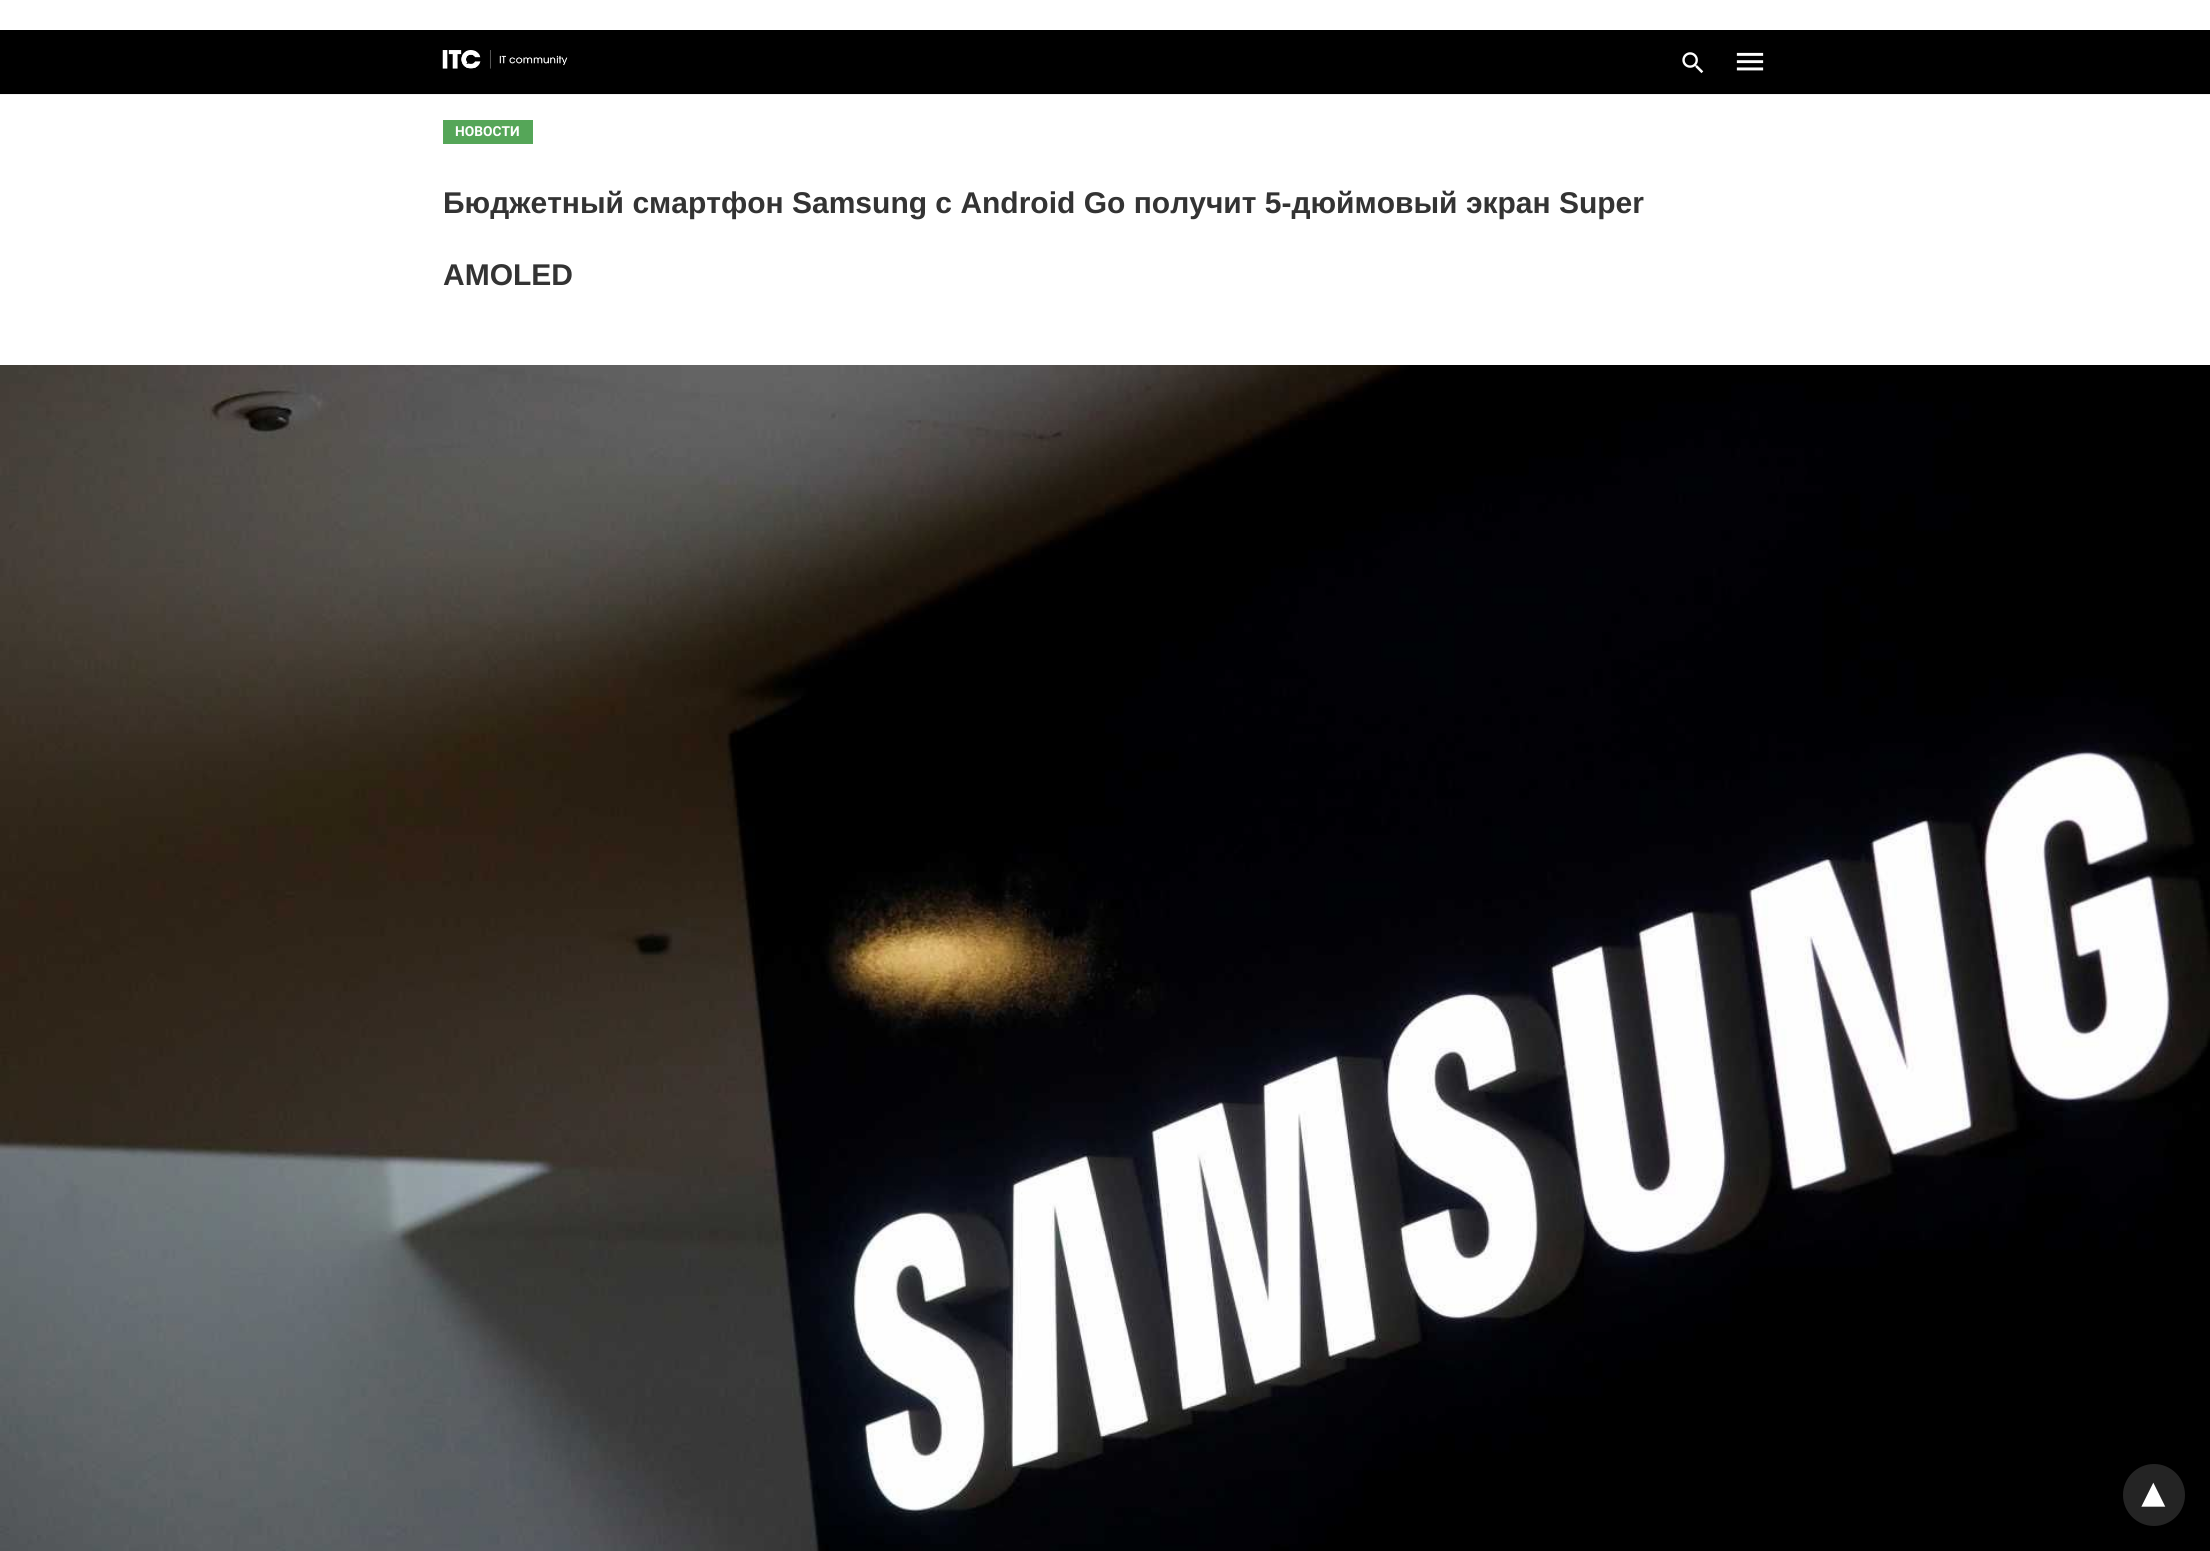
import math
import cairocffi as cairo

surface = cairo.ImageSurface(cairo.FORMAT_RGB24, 2210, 1551)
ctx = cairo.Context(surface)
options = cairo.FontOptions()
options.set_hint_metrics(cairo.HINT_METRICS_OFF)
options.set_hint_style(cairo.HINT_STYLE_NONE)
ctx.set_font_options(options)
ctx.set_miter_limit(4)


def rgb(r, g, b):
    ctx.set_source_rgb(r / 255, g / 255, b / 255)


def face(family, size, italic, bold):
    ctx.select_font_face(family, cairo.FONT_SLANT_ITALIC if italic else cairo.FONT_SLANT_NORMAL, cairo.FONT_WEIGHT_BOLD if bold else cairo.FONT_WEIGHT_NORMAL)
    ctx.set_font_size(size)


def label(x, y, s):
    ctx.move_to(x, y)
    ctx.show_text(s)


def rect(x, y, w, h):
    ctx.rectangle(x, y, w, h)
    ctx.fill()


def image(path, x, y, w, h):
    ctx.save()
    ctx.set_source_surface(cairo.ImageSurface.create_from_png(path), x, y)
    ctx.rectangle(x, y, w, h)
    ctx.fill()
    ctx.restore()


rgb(255, 255, 255)
ctx.paint()
rgb(0, 0, 0)
rect(0, 30, 2210, 64)
image('image0.png', 442, 50, 126, 19)
image('image1.png', 1682, 52, 22, 22)
image('image2.png', 1736, 52, 28, 19)
rgb(242, 242, 242)
rect(0, 94, 2210, 1)
rgb(85, 166, 88)
rect(443, 120, 90, 24)
face('Roboto', 13.75, 0, 1)
rgb(255, 255, 255)
label(455, 136, 'НОВОСТИ')
face('Liberation Sans', 30, 0, 1)
rgb(51, 51, 51)
label(443, 213, 'Бюджетный смартфон Samsung с Android Go получит 5-дюймовый экран Super')
label(443, 285, 'AMOLED')
image('image3.png', 0, 365, 2210, 1186)
rgb(36, 36, 36)
ctx.arc(2154, 1495, 31, 0, 2 * math.pi)
ctx.fill()
face('DejaVu Sans', 44, 0, 1)
rgb(255, 255, 255)
ctx.save()
ctx.translate(2165, 1483)
ctx.rotate(180 * math.pi / 180)
label(0, 0, '▾')
ctx.restore()
surface.write_to_png('render.png')
